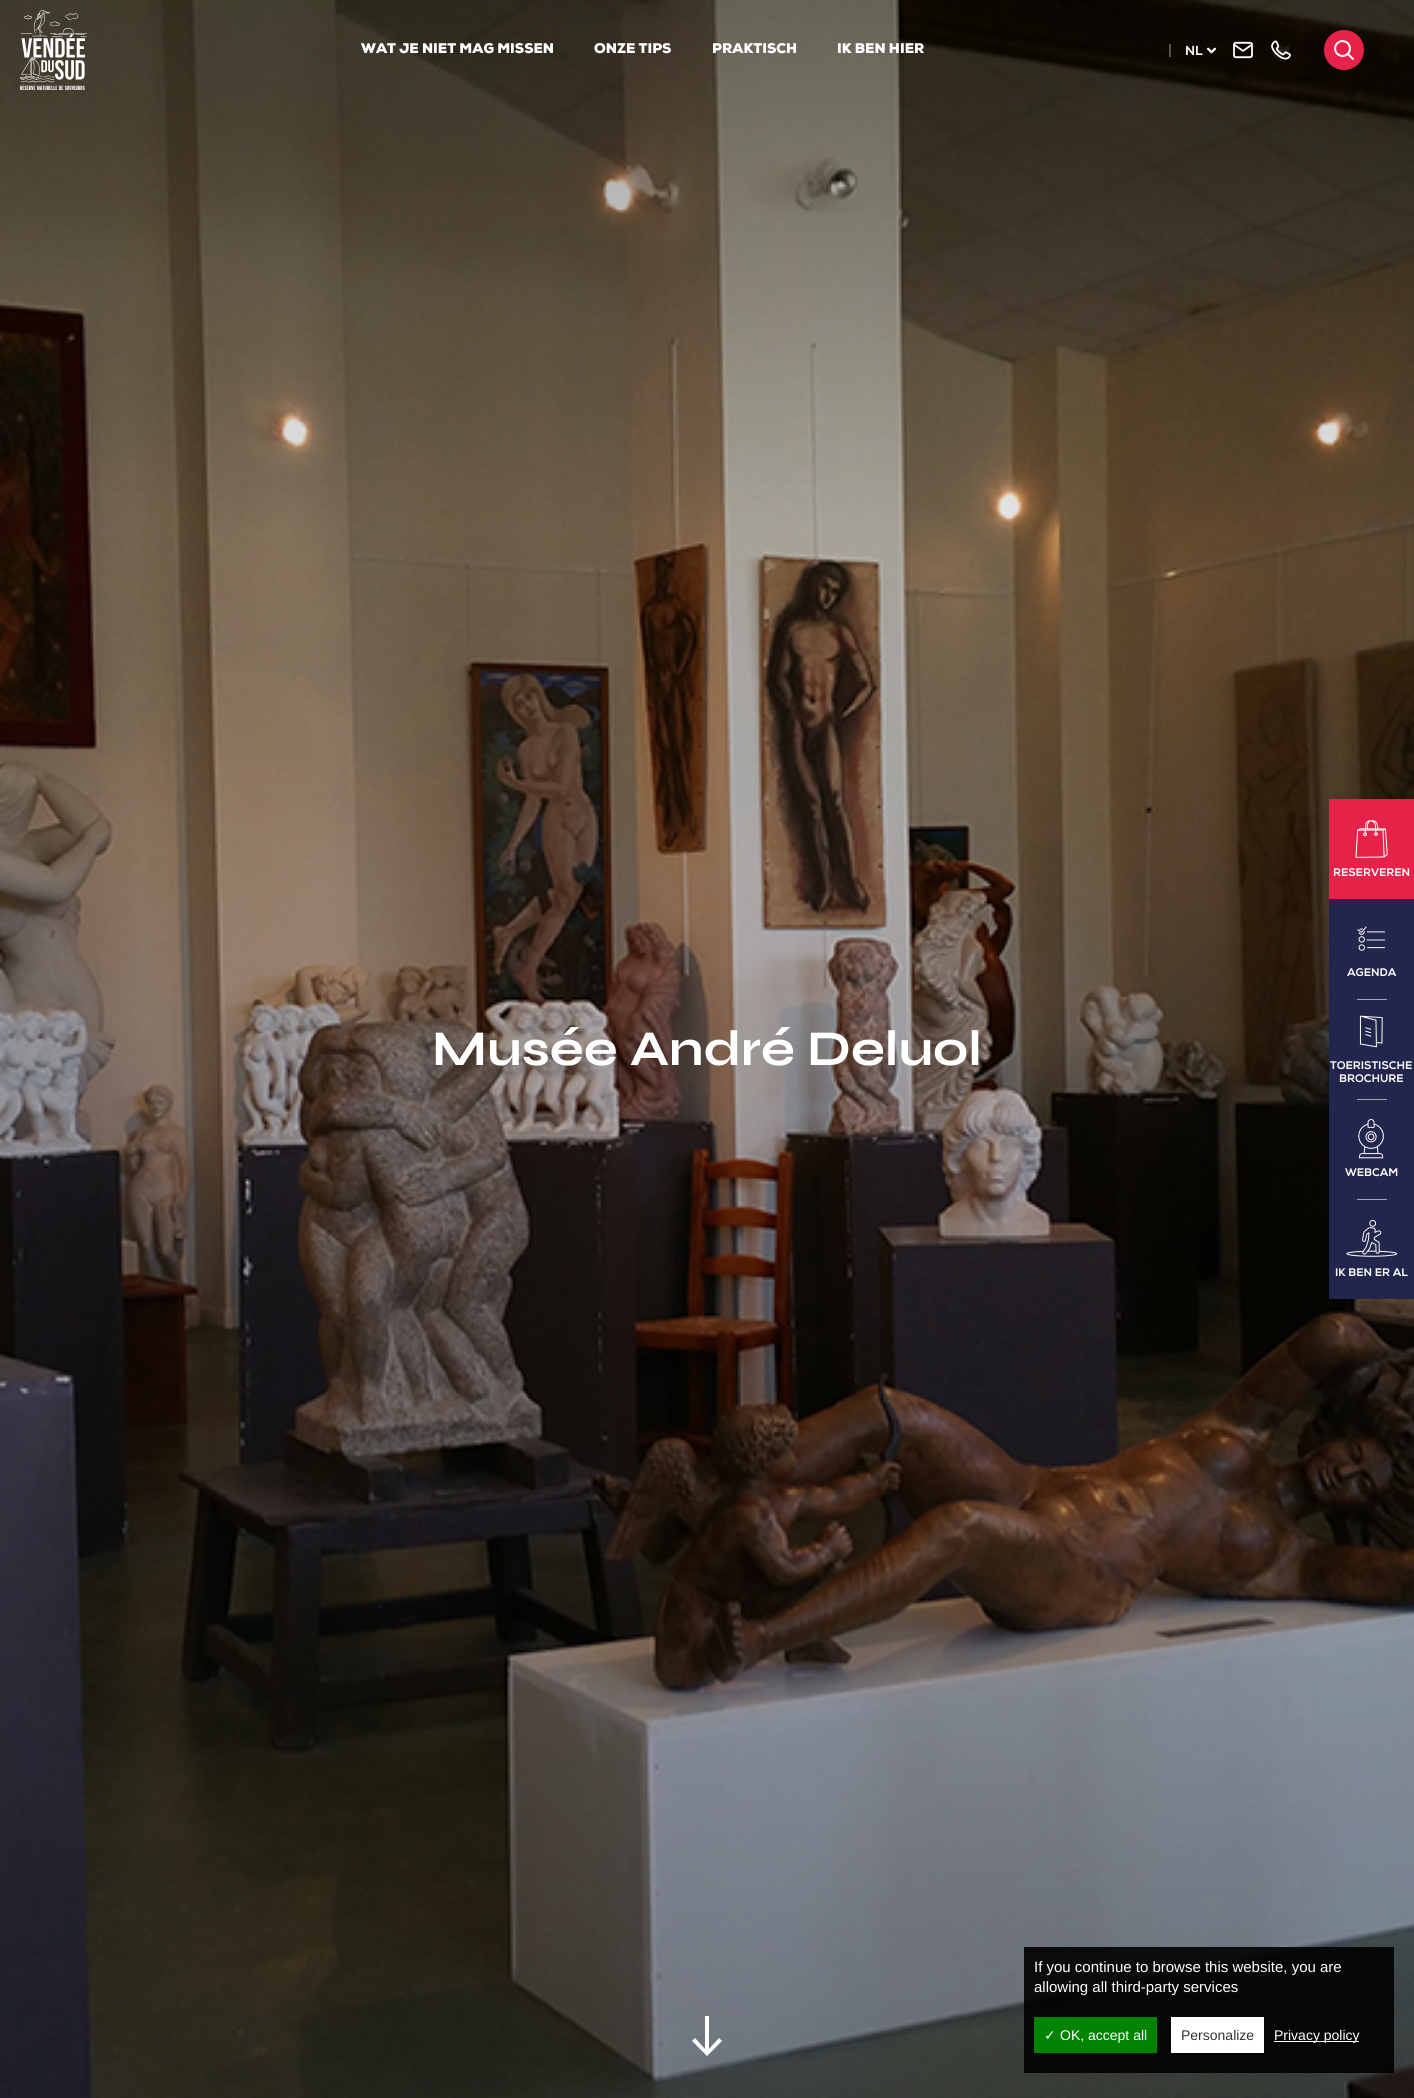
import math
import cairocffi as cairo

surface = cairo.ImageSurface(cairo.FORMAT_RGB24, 1414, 2098)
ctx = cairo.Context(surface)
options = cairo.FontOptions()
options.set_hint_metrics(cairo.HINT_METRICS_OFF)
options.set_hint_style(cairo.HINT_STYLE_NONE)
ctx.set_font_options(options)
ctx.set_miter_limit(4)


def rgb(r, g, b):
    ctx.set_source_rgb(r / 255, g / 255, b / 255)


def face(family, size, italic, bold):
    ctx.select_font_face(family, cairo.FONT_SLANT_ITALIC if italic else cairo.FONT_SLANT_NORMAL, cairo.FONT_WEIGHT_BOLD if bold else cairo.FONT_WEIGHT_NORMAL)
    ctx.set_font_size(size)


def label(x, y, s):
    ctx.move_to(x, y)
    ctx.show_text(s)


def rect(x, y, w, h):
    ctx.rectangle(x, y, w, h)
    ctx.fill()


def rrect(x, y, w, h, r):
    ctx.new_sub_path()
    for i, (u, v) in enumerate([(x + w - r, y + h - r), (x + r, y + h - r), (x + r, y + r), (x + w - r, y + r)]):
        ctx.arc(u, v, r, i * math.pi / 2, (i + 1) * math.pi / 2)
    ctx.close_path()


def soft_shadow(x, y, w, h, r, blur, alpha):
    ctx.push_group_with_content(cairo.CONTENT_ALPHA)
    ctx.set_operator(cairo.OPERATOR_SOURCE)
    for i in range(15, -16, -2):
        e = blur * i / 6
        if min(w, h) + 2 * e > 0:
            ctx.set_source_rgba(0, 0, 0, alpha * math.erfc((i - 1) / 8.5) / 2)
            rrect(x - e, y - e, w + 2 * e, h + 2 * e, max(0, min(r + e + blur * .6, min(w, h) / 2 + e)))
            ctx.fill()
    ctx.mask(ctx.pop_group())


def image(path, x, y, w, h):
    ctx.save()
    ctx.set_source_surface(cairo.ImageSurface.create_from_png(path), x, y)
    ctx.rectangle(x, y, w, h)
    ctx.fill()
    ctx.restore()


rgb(255, 255, 255)
ctx.paint()
image('image5.png', 0, 0, 1414, 2098)
image('image0.png', 20, 10, 67, 80)
face('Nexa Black', 14, 0, 0)
rgb(255, 255, 255)
label(361, 53, 'WAT JE NIET MAG MISSEN')
label(594, 53, 'ONZE TIPS')
label(712, 53, 'PRAKTISCH')
label(837, 53, 'IK BEN HIER')
ctx.set_source_rgba(1, 1, 1, 0.3)
rect(1169, 44, 2, 13)
face('Nexa', 13, 0, 1)
rgb(255, 255, 255)
label(1185, 55, 'NL')
image('image1.png', 1207, 47, 9, 7)
image('image2.png', 1233, 41, 20, 18)
image('image3.png', 1271, 40, 20, 20)
rgb(230, 34, 73)
ctx.arc(1344, 50, 20, 0, 2 * math.pi)
ctx.fill()
image('image4.png', 1334, 40, 20, 20)
face('Syne', 50, 0, 1)
rgb(255, 255, 255)
label(432, 1065, 'Musée André Deluol')
ctx.new_path()
ctx.move_to(707, 2056)
ctx.line_to(722, 2041)
ctx.line_to(719, 2038)
ctx.line_to(709, 2049)
ctx.line_to(709, 2016)
ctx.line_to(705, 2016)
ctx.line_to(705, 2049)
ctx.line_to(695, 2038)
ctx.line_to(692, 2041)
ctx.close_path()
ctx.fill()
rgb(0, 0, 0)
soft_shadow(1331, 806, 81, 496, 0, 10, 0.2)
rgb(34, 37, 76)
rect(1329, 899, 85, 400)
rgb(230, 34, 73)
rect(1329, 799, 85, 100)
image('image6.png', 1355, 820, 33, 38)
face('Nexa', 11, 0, 1)
rgb(255, 255, 255)
label(1333, 876, 'RESERVEREN')
image('image7.png', 1357, 926, 29, 25)
label(1347, 976, 'AGENDA')
rgb(167, 168, 183)
rect(1357, 999, 30, 1)
image('image8.png', 1359, 1015, 24, 33)
rgb(255, 255, 255)
label(1330, 1069, 'TOERISTISCHE')
label(1339, 1082, 'BROCHURE')
rgb(167, 168, 183)
rect(1357, 1099, 30, 1)
image('image9.png', 1358, 1119, 26, 40)
rgb(255, 255, 255)
label(1345, 1176, 'WEBCAM')
rgb(167, 168, 183)
rect(1357, 1199, 30, 1)
image('image10.png', 1346, 1219, 52, 38)
rgb(255, 255, 255)
label(1335, 1276, 'IK BEN ER AL')
ctx.set_source_rgba(0, 0, 0, 0.9)
rect(1024, 1947, 370, 126)
face('Liberation Sans', 15, 0, 0)
rgb(255, 255, 255)
label(1034, 1972, 'If you continue to browse this website, you are')
label(1034, 1992, 'allowing all third-party services')
rgb(0, 131, 0)
rect(1034, 2017, 123, 36)
face('DejaVu Sans', 14, 0, 0)
rgb(255, 255, 255)
label(1044, 2040, '✓')
face('Liberation Sans', 14, 0, 0)
label(1060, 2040, 'OK, accept all')
rect(1171, 2017, 93, 36)
rgb(51, 51, 51)
label(1181, 2040, 'Personalize')
rgb(255, 255, 255)
rect(1274, 2041, 85, 1)
label(1274, 2040, 'Privacy policy')
surface.write_to_png('render.png')
